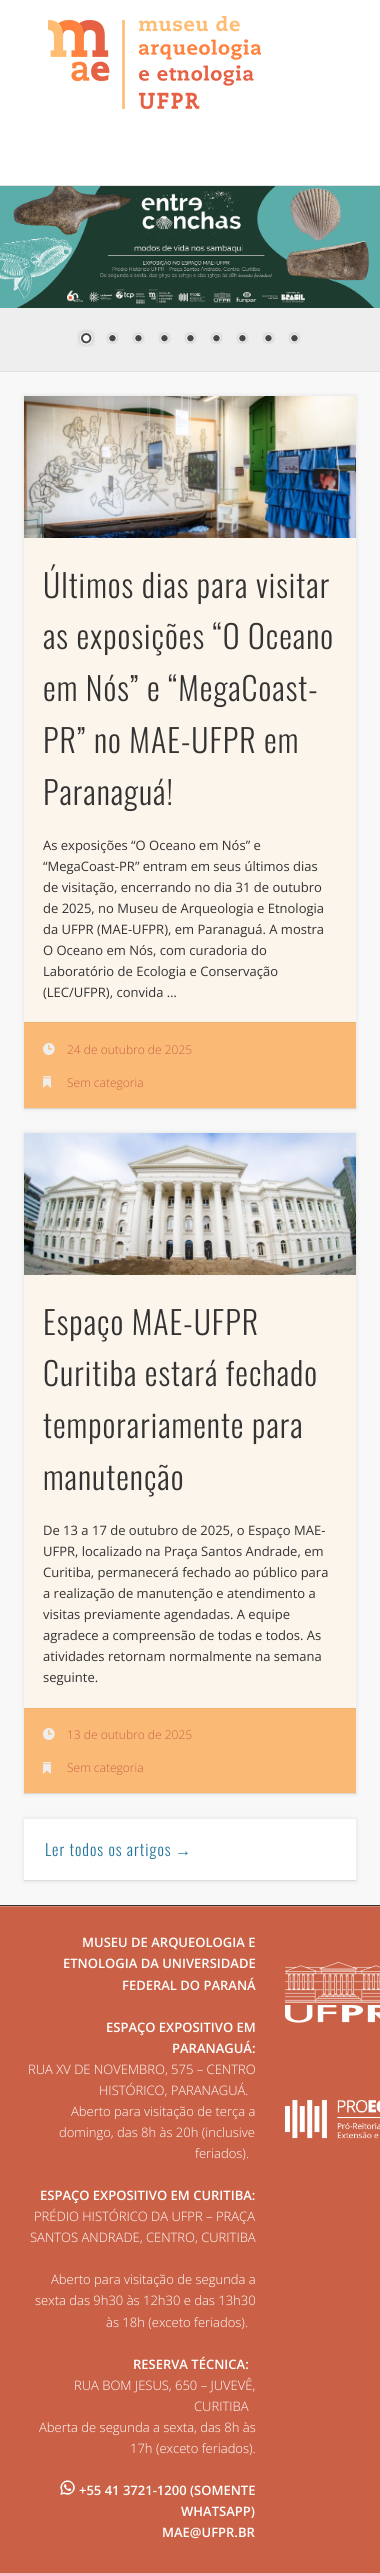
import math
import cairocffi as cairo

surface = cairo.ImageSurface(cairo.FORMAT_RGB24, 380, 2573)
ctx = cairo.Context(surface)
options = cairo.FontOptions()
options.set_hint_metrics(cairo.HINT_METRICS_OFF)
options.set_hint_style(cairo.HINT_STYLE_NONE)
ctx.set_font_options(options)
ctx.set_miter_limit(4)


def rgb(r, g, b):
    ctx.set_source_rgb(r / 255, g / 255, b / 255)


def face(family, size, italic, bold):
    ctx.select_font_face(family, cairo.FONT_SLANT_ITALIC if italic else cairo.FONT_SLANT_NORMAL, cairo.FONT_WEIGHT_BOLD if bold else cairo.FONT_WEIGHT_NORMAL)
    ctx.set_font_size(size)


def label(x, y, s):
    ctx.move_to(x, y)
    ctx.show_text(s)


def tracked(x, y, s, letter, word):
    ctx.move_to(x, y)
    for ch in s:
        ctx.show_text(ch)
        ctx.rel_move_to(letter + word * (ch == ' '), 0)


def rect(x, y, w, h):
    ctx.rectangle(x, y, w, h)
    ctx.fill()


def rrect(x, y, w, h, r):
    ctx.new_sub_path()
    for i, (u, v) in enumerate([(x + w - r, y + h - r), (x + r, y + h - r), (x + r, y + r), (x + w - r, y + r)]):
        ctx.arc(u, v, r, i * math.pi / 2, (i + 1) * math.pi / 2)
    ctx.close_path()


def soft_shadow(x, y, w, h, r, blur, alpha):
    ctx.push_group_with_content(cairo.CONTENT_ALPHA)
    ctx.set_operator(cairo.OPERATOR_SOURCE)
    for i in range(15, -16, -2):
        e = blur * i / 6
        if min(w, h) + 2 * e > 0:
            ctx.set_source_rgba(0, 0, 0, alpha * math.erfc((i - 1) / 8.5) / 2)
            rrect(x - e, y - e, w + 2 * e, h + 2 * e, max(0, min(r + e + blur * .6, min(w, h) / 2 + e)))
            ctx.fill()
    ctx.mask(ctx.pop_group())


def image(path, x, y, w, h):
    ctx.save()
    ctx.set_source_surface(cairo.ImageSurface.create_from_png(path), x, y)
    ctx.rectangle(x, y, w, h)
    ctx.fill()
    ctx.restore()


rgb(248, 248, 248)
ctx.paint()
rgb(255, 255, 255)
rect(0, 0, 380, 185)
image('image0.png', 48, 16, 213, 93)
rgb(238, 238, 238)
rect(0, 308, 380, 63)
rgb(225, 225, 225)
rect(0, 185, 380, 1)
rect(0, 371, 380, 1)
image('image1.png', 0, 186, 380, 122)
image('image2.png', 77, 329, 18, 18)
image('image3.png', 106, 332, 13, 12)
image('image3.png', 132, 332, 13, 12)
image('image3.png', 158, 332, 13, 12)
image('image3.png', 184, 332, 13, 12)
image('image3.png', 210, 332, 13, 12)
image('image3.png', 236, 332, 13, 12)
image('image3.png', 262, 332, 13, 12)
image('image3.png', 288, 332, 13, 12)
rgb(0, 0, 0)
soft_shadow(24, 396, 332, 713, 0, 2.5, 0.1)
rgb(252, 245, 236)
rect(24, 538, 332, 484)
rgb(219, 213, 205)
rect(24, 1108, 332, 1)
image('image4.png', 24, 396, 332, 142)
face('Oswald Light', 32, 0, 0)
rgb(51, 51, 51)
tracked(43, 598, 'Últimos dias para visitar', 1, 0)
tracked(43, 649, 'as exposições “O Oceano', 1, 0)
tracked(43, 701, 'em Nós” e “MegaCoast-', 1, 0)
tracked(43, 753, 'PR” no MAE-UFPR em', 1, 0)
tracked(43, 805, 'Paranaguá!', 1, 0)
face('Open Sans', 13, 0, 0)
label(43, 850, 'As exposições “O Oceano em Nós” e')
label(43, 871, '“MegaCoast-PR” entram em seus últimos dias')
label(43, 892, 'de visitação, encerrando no dia 31 de outubro')
label(43, 913, 'de 2025, no Museu de Arqueologia e Etnologia')
label(43, 934, 'da UFPR (MAE-UFPR), em Paranaguá. A mostra')
label(43, 955, 'O Oceano em Nós, com curadoria do')
label(43, 976, 'Laboratório de Ecologia e Conservação')
label(43, 997, '(LEC/UFPR), convida …')
rgb(250, 186, 118)
rect(24, 1023, 332, 85)
rgb(241, 179, 114)
rect(24, 1022, 332, 1)
image('image5.png', 43, 1043, 12, 12)
face('Open Sans Light', 12, 0, 0)
rgb(202, 97, 70)
label(67, 1054, '24 de outubro de 2025')
image('image6.png', 43, 1076, 8, 12)
label(67, 1087, 'Sem categoria')
rgb(0, 0, 0)
soft_shadow(24, 1133, 332, 661, 0, 2.5, 0.1)
rgb(252, 245, 236)
rect(24, 1275, 332, 433)
rgb(219, 213, 205)
rect(24, 1793, 332, 1)
image('image7.png', 24, 1133, 332, 142)
face('Oswald Light', 32, 0, 0)
rgb(51, 51, 51)
tracked(43, 1335, 'Espaço MAE-UFPR', 1, 0)
tracked(43, 1386, 'Curitiba estará fechado', 1, 0)
tracked(43, 1438, 'temporariamente para', 1, 0)
tracked(43, 1490, 'manutenção', 1, 0)
face('Open Sans', 13, 0, 0)
label(43, 1535, 'De 13 a 17 de outubro de 2025, o Espaço MAE-')
label(43, 1556, 'UFPR, localizado na Praça Santos Andrade, em')
label(43, 1577, 'Curitiba, permanecerá fechado ao público para')
label(43, 1598, 'a realização de manutenção e atendimento a')
label(43, 1619, 'visitas previamente agendadas. A equipe')
label(43, 1640, 'agradece a compreensão de todas e todos. As')
label(43, 1661, 'atividades retornam normalmente na semana')
label(43, 1682, 'seguinte.')
rgb(250, 186, 118)
rect(24, 1709, 332, 84)
rgb(241, 179, 114)
rect(24, 1708, 332, 1)
image('image5.png', 43, 1728, 12, 12)
face('Open Sans Light', 12, 0, 0)
rgb(202, 97, 70)
label(67, 1739, '13 de outubro de 2025')
image('image6.png', 43, 1762, 8, 12)
label(67, 1772, 'Sem categoria')
rgb(0, 0, 0)
soft_shadow(24, 1819, 332, 62, 0, 2.5, 0.1)
rgb(255, 255, 255)
rect(24, 1819, 332, 61)
rgb(222, 222, 222)
rect(24, 1880, 332, 1)
face('Oswald Light', 16, 0, 0)
rgb(33, 117, 155)
tracked(45, 1856, 'Ler todos os artigos', 1, 0)
face('Liberation Sans', 16, 0, 0)
tracked(175, 1856, '→', 1, 0)
rgb(52, 52, 52)
rect(0, 1905, 380, 1)
rgb(202, 97, 70)
rect(0, 1907, 380, 666)
rgb(214, 134, 113)
rect(0, 1906, 380, 1)
face('Open Sans SemiBold', 13, 0, 0)
rgb(255, 255, 255)
label(82, 1947, 'MUSEU DE ARQUEOLOGIA E')
label(63, 1968, 'ETNOLOGIA DA UNIVERSIDADE')
label(122, 1990, 'FEDERAL DO PARANÁ')
label(106, 2032, 'ESPAÇO EXPOSITIVO EM')
label(172, 2053, 'PARANAGUÁ:')
face('Open Sans Light', 13, 0, 0)
label(28, 2074, 'RUA XV DE NOVEMBRO, 575 – CENTRO')
label(99, 2095, 'HISTÓRICO, PARANAGUÁ.')
label(71, 2116, 'Aberto para visitação de terça a')
label(59, 2137, 'domingo, das 8h às 20h (inclusive')
label(195, 2158, 'feriados).')
face('Open Sans SemiBold', 13, 0, 0)
label(40, 2200, 'ESPAÇO EXPOSITIVO EM CURITIBA:')
face('Open Sans Light', 13, 0, 0)
label(34, 2221, 'PRÉDIO HISTÓRICO DA UFPR – PRAÇA')
label(30, 2242, 'SANTOS ANDRADE, CENTRO, CURITIBA')
label(51, 2284, 'Aberto para visitação de segunda a')
label(35, 2305, 'sexta das 9h30 às 12h30 e das 13h30')
label(106, 2327, 'às 18h (exceto feriados).')
face('Open Sans SemiBold', 13, 0, 0)
label(133, 2369, 'RESERVA TÉCNICA:')
face('Open Sans Light', 13, 0, 0)
label(74, 2390, 'RUA BOM JESUS, 650 – JUVEVÊ,')
label(194, 2411, 'CURITIBA')
label(39, 2432, 'Aberta de segunda a sexta, das 8h às')
label(130, 2453, '17h (exceto feriados).')
image('image8.png', 60, 2480, 15, 15)
face('Open Sans SemiBold', 13, 0, 0)
label(79, 2495, '+55 41 3721-1200 (SOMENTE')
label(181, 2516, 'WHATSAPP)')
label(162, 2537, 'MAE@UFPR.BR')
image('image9.png', 285, 1962, 95, 61)
image('image10.png', 285, 2100, 95, 39)
surface.write_to_png('render.png')
